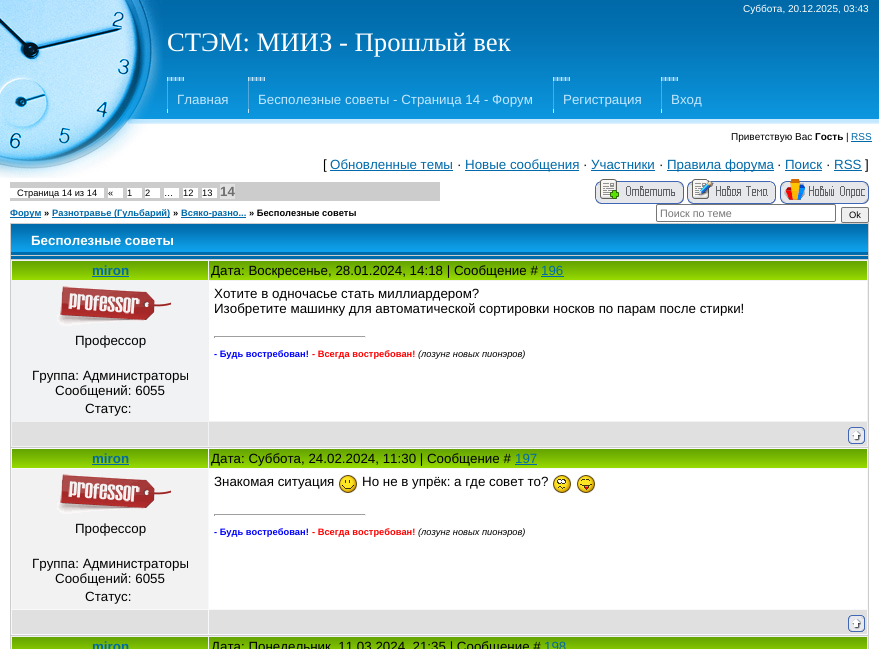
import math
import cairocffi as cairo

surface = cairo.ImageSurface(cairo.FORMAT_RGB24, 879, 649)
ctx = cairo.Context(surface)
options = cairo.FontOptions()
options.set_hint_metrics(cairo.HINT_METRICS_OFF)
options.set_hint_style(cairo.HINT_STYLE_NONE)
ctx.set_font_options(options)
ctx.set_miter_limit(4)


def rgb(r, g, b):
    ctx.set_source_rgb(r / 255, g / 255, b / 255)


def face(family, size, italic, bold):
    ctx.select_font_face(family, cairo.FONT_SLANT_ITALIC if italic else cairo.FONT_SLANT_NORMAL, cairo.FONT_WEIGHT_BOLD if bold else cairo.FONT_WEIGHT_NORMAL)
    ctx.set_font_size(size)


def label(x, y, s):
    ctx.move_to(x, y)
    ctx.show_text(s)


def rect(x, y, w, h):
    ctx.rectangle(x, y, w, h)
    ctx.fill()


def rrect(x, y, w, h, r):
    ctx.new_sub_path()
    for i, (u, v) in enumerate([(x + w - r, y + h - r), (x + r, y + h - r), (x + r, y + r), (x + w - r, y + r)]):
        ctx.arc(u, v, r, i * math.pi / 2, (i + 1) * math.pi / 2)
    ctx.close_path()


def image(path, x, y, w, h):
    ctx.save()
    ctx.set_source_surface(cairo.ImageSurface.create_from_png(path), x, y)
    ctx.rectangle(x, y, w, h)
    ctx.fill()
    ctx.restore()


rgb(255, 255, 255)
ctx.paint()
image('image0.png', 0, 124, 159, 54)
image('image1.png', 163, 0, 716, 124)
image('image2.png', 0, 0, 163, 124)
face('Liberation Sans', 10, 0, 0)
rgb(255, 255, 255)
label(743, 12, 'Суббота, 20.12.2025, 03:43')
face('Liberation Serif', 26.7, 0, 0)
label(167, 51, 'СТЭМ: МИИЗ - Прошлый век')
image('image3.png', 167, 77, 17, 36)
face('Liberation Sans', 13.35, 0, 0)
rgb(193, 231, 255)
label(177, 104, 'Главная')
image('image3.png', 248, 77, 17, 36)
label(258, 104, 'Бесполезные советы - Страница 14 - Форум')
image('image3.png', 553, 77, 17, 36)
label(563, 104, 'Регистрация')
image('image3.png', 661, 77, 17, 36)
label(671, 104, 'Вход')
face('Liberation Sans', 10, 0, 0)
rgb(0, 0, 0)
label(731, 140, 'Приветствую Вас')
face('Liberation Sans', 10, 0, 1)
label(815, 140, 'Гость')
face('Liberation Sans', 10, 0, 0)
label(846, 140, '|')
rgb(0, 105, 169)
label(851, 140, 'RSS')
rect(851, 141, 21, 1)
face('Liberation Sans', 13.35, 0, 0)
rgb(0, 0, 0)
label(323, 169, '[')
rgb(0, 105, 169)
label(330, 169, 'Обновленные темы')
rect(330, 170, 123, 1)
rgb(0, 0, 0)
label(457, 169, '·')
rgb(0, 105, 169)
rect(465, 170, 114, 1)
label(465, 169, 'Новые сообщения')
rgb(0, 0, 0)
label(583, 169, '·')
rgb(0, 105, 169)
label(591, 169, 'Участники')
rect(591, 170, 64, 1)
rgb(0, 0, 0)
label(659, 169, '·')
rgb(0, 105, 169)
rect(667, 170, 107, 1)
label(667, 169, 'Правила форума')
rgb(0, 0, 0)
label(777, 169, '·')
rgb(0, 105, 169)
label(785, 169, 'Поиск')
rect(785, 170, 37, 1)
rgb(0, 0, 0)
label(826, 169, '·')
rgb(0, 105, 169)
label(834, 169, 'RSS')
rect(834, 170, 28, 1)
rgb(0, 0, 0)
label(865, 169, ']')
rgb(204, 204, 204)
rect(10, 182, 430, 19)
rgb(255, 255, 255)
rect(10, 188, 94, 10)
face('Liberation Sans', 9.3, 0, 0)
rgb(0, 0, 0)
label(17, 196, 'Страница 14 из 14')
rgb(255, 255, 255)
rect(108, 188, 15, 10)
rgb(0, 0, 0)
label(108, 196, '«')
rgb(255, 255, 255)
rect(127, 188, 15, 10)
rgb(0, 0, 0)
label(127, 196, '1')
rgb(255, 255, 255)
rect(145, 188, 15, 10)
rgb(0, 0, 0)
label(145, 196, '2')
rgb(255, 255, 255)
rect(164, 188, 15, 10)
rgb(0, 0, 0)
label(164, 196, '…')
rgb(255, 255, 255)
rect(183, 188, 15, 10)
rgb(0, 0, 0)
label(183, 196, '12')
rgb(255, 255, 255)
rect(202, 188, 15, 10)
rgb(0, 0, 0)
label(202, 196, '13')
rgb(224, 224, 224)
rect(220, 184, 15, 15)
face('Liberation Sans', 13.35, 0, 1)
rgb(110, 110, 110)
label(220, 196, '14')
image('image4.png', 595, 179, 89, 25)
image('image5.png', 687, 179, 89, 25)
image('image6.png', 780, 179, 89, 25)
rgb(0, 105, 169)
rect(10, 217, 31, 1)
face('Liberation Sans', 9.3, 0, 1)
label(10, 216, 'Форум')
rgb(0, 0, 0)
label(44, 216, '»')
rgb(0, 105, 169)
rect(52, 217, 118, 1)
label(52, 216, 'Разнотравье (Гульбарий)')
rgb(0, 0, 0)
label(173, 216, '»')
rgb(0, 105, 169)
rect(181, 217, 65, 1)
label(181, 216, 'Всяко-разно...')
rgb(0, 0, 0)
label(249, 216, '» Бесполезные советы')
rrect(656.5, 204.5, 179, 17, 1.5)
rgb(118, 118, 118)
ctx.set_line_width(1)
ctx.stroke()
face('Liberation Sans', 10.75, 0, 0)
rgb(117, 117, 117)
label(660, 217, 'Поиск по теме')
rgb(239, 239, 239)
rrect(841.5, 207.5, 27, 15, 1.5)
ctx.fill_preserve()
rgb(118, 118, 118)
ctx.stroke()
face('Liberation Sans', 9.3, 0, 0)
rgb(0, 0, 0)
label(849, 218, 'Ok')
rgb(204, 204, 204)
rect(10, 223, 859, 426)
image('image7.png', 11, 224, 857, 31)
face('Liberation Sans', 13.35, 0, 1)
rgb(255, 255, 255)
label(31, 245, 'Бесполезные советы')
rgb(1, 108, 172)
rect(11, 256, 857, 3)
rgb(241, 242, 243)
rect(11, 260, 857, 187)
image('image8.png', 12, 261, 196, 19)
rgb(0, 105, 169)
label(92, 275, 'miron')
rect(92, 276, 37, 1)
image('image9.png', 209, 261, 658, 19)
face('Liberation Sans', 13.35, 0, 0)
rgb(0, 0, 0)
label(211, 275, 'Дата: Воскресенье, 28.01.2024, 14:18 | Сообщение #')
rgb(0, 105, 169)
label(541, 275, '196')
rect(541, 276, 23, 1)
rgb(255, 255, 255)
rect(209, 281, 658, 140)
rgb(0, 0, 0)
label(214, 298, 'Хотите в одночасье стать миллиардером?')
label(214, 313, 'Изобретите машинку для автоматической сортировки носков по парам после стирки!')
rgb(159, 159, 159)
rect(214, 336, 152, 1)
rgb(238, 238, 238)
rect(365, 336, 1, 2)
rgb(159, 159, 159)
rect(214, 336, 1, 2)
face('Liberation Sans', 9.3, 0, 1)
rgb(0, 0, 255)
label(214, 357, '- Будь востребован!')
rgb(255, 0, 0)
label(312, 357, '- Всегда востребован!')
face('Liberation Sans', 9.3, 1, 0)
rgb(0, 0, 0)
label(418, 357, '(лозунг новых пионэров)')
image('image10.png', 57, 286, 114, 40)
face('Liberation Sans', 13.35, 0, 0)
label(75, 345, 'Профессор')
label(32, 380, 'Группа: Администраторы')
label(55, 395, 'Сообщений: 6055')
label(85, 413, 'Статус:')
rgb(224, 224, 224)
rect(12, 422, 196, 24)
rect(209, 422, 658, 24)
image('image11.png', 848, 427, 17, 17)
rgb(248, 249, 250)
rect(11, 448, 857, 187)
image('image8.png', 12, 449, 196, 19)
face('Liberation Sans', 13.35, 0, 1)
rgb(0, 105, 169)
label(92, 463, 'miron')
rect(92, 464, 37, 1)
image('image9.png', 209, 449, 658, 19)
face('Liberation Sans', 13.35, 0, 0)
rgb(0, 0, 0)
label(211, 463, 'Дата: Суббота, 24.02.2024, 11:30 | Сообщение #')
rgb(0, 105, 169)
label(515, 463, '197')
rect(515, 464, 22, 1)
rgb(255, 255, 255)
rect(209, 469, 658, 140)
rgb(0, 0, 0)
label(214, 486, 'Знакомая ситуация')
image('image12.png', 339, 475, 18, 18)
label(362, 486, 'Но не в упрёк: а где совет то?')
image('image13.png', 553, 475, 18, 18)
image('image14.png', 577, 475, 18, 18)
rgb(159, 159, 159)
rect(214, 514, 152, 1)
rgb(238, 238, 238)
rect(365, 514, 1, 2)
rgb(159, 159, 159)
rect(214, 514, 1, 2)
face('Liberation Sans', 9.3, 0, 1)
rgb(0, 0, 255)
label(214, 535, '- Будь востребован!')
rgb(255, 0, 0)
label(312, 535, '- Всегда востребован!')
face('Liberation Sans', 9.3, 1, 0)
rgb(0, 0, 0)
label(418, 535, '(лозунг новых пионэров)')
rgb(242, 242, 242)
rect(12, 469, 196, 140)
image('image15.png', 57, 474, 114, 40)
face('Liberation Sans', 13.35, 0, 0)
rgb(0, 0, 0)
label(75, 533, 'Профессор')
label(32, 568, 'Группа: Администраторы')
label(55, 583, 'Сообщений: 6055')
label(85, 601, 'Статус:')
rgb(224, 224, 224)
rect(12, 610, 196, 24)
rect(209, 610, 658, 24)
image('image11.png', 848, 615, 17, 17)
rgb(241, 242, 243)
rect(11, 636, 857, 13)
image('image16.png', 12, 637, 196, 12)
face('Liberation Sans', 13.35, 0, 1)
rgb(0, 105, 169)
label(92, 651, 'miron')
image('image17.png', 209, 637, 658, 12)
face('Liberation Sans', 13.35, 0, 0)
rgb(0, 0, 0)
label(211, 651, 'Дата: Понедельник, 11.03.2024, 21:35 | Сообщение #')
rgb(0, 105, 169)
label(544, 651, '198')
surface.write_to_png('render.png')
